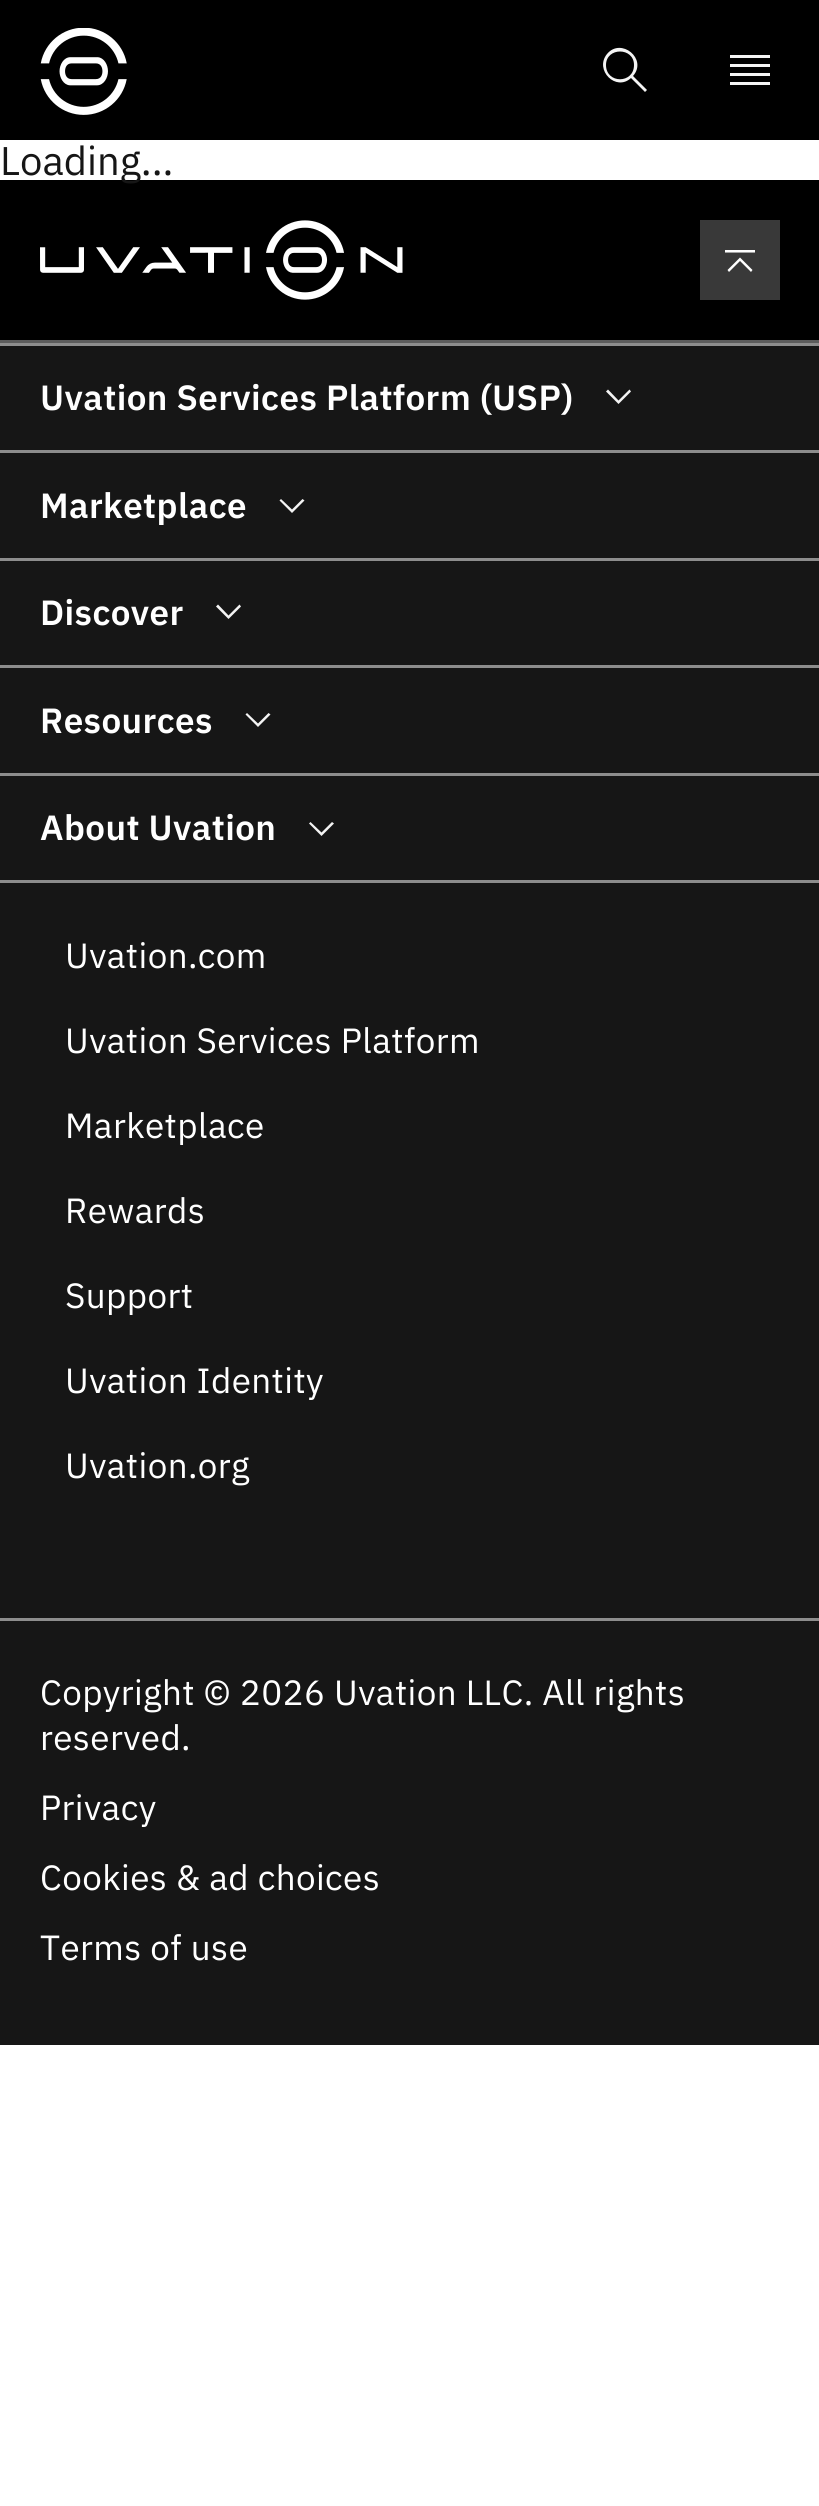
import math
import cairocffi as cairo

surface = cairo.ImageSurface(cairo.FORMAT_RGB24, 819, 2506)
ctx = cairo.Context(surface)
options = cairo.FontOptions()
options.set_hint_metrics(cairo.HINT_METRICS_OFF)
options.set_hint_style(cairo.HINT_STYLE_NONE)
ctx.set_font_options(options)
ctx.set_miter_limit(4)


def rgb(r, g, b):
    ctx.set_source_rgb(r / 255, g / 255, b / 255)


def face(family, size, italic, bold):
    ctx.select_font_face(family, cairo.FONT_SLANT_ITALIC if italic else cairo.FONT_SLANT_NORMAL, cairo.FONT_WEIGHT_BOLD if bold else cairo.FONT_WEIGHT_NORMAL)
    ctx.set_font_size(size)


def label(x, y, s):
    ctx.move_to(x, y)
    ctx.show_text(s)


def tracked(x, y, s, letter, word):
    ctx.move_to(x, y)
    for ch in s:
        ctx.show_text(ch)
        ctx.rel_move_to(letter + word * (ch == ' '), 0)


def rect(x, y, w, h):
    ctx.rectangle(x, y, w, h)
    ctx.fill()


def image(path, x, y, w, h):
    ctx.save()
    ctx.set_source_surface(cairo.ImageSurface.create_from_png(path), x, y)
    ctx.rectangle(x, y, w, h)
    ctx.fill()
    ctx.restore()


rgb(255, 255, 255)
ctx.paint()
rgb(0, 0, 0)
rect(0, 0, 819, 140)
image('image0.png', 40, 28, 87, 87)
rgb(244, 244, 244)
ctx.new_path()
ctx.move_to(647, 90)
ctx.line_to(633, 76)
ctx.curve_to(648, 59, 621, 37, 607, 54)
ctx.curve_to(594, 70, 616, 92, 631, 78)
ctx.line_to(645, 92)
ctx.close_path()
ctx.move_to(606, 65)
ctx.curve_to(606, 47, 634, 47, 634, 65)
ctx.curve_to(634, 84, 606, 84, 606, 65)
ctx.close_path()
ctx.fill()
image('image1.png', 730, 55, 40, 30)
rgb(0, 0, 0)
rect(0, 180, 819, 160)
face('IBM Plex Sans', 40, 0, 0)
rgb(22, 22, 22)
label(0, 175, 'Loading...')
rgb(92, 92, 92)
rect(0, 340, 819, 3)
image('image2.png', 40, 220, 363, 80)
rgb(57, 57, 57)
rect(700, 220, 80, 80)
rgb(255, 255, 255)
ctx.new_path()
ctx.move_to(740, 257.5)
ctx.line_to(727.5, 270)
ctx.line_to(729, 272)
ctx.line_to(740, 261)
ctx.line_to(751, 272)
ctx.line_to(752.5, 270)
ctx.close_path()
ctx.move_to(725, 250)
ctx.line_to(755, 250)
ctx.line_to(755, 252.5)
ctx.line_to(725, 252.5)
ctx.close_path()
ctx.fill()
rgb(22, 22, 22)
rect(0, 346, 819, 1699)
rgb(141, 141, 141)
rect(0, 343, 819, 3)
face('IBM Plex Sans SemiBold', 35, 0, 0)
rgb(255, 255, 255)
tracked(40, 410, 'Uvation Services Platform (USP)', 0.4, 0)
rgb(244, 244, 244)
ctx.new_path()
ctx.move_to(618.5, 404)
ctx.line_to(606, 391.5)
ctx.line_to(608, 389.5)
ctx.line_to(618.5, 400.5)
ctx.line_to(629.5, 389.5)
ctx.line_to(631, 391.5)
ctx.close_path()
ctx.fill()
rgb(141, 141, 141)
rect(0, 450, 819, 3)
rgb(255, 255, 255)
tracked(40, 518, 'Marketplace', 0.4, 0)
rgb(244, 244, 244)
ctx.new_path()
ctx.move_to(292, 513)
ctx.line_to(279.5, 500.5)
ctx.line_to(281, 499)
ctx.line_to(292, 509.5)
ctx.line_to(302.5, 499)
ctx.line_to(304.5, 500.5)
ctx.close_path()
ctx.fill()
rgb(141, 141, 141)
rect(0, 558, 819, 3)
rgb(255, 255, 255)
tracked(40, 625, 'Discover', 0.4, 0)
rgb(244, 244, 244)
ctx.new_path()
ctx.move_to(228.5, 619)
ctx.line_to(216, 606.5)
ctx.line_to(218, 604.5)
ctx.line_to(228.5, 615.5)
ctx.line_to(239.5, 604.5)
ctx.line_to(241, 606.5)
ctx.close_path()
ctx.fill()
rgb(141, 141, 141)
rect(0, 665, 819, 3)
rgb(255, 255, 255)
tracked(40, 733, 'Resources', 0.4, 0)
rgb(244, 244, 244)
ctx.new_path()
ctx.move_to(258, 727)
ctx.line_to(245.5, 714.5)
ctx.line_to(247, 713)
ctx.line_to(258, 723.5)
ctx.line_to(268.5, 713)
ctx.line_to(270.5, 714.5)
ctx.close_path()
ctx.fill()
rgb(141, 141, 141)
rect(0, 773, 819, 3)
rect(0, 880, 819, 3)
rgb(255, 255, 255)
tracked(40, 840, 'About Uvation', 0.4, 0)
rgb(244, 244, 244)
ctx.new_path()
ctx.move_to(321.5, 836)
ctx.line_to(309, 823.5)
ctx.line_to(310.5, 822)
ctx.line_to(321.5, 832.5)
ctx.line_to(332, 822)
ctx.line_to(334, 823.5)
ctx.close_path()
ctx.fill()
face('IBM Plex Sans', 35, 0, 0)
rgb(255, 255, 255)
tracked(65, 968, 'Uvation.com', 0.4, 0)
tracked(65, 1053, 'Uvation Services Platform', 0.4, 0)
tracked(65, 1138, 'Marketplace', 0.4, 0)
tracked(65, 1223, 'Rewards', 0.4, 0)
tracked(65, 1308, 'Support', 0.4, 0)
tracked(65, 1393, 'Uvation Identity', 0.4, 0)
tracked(65, 1478, 'Uvation.org', 0.4, 0)
rgb(141, 141, 141)
rect(0, 1618, 819, 3)
rgb(255, 255, 255)
tracked(40, 1705, 'Copyright © 2026 Uvation LLC. All rights', 0.4, 0)
tracked(40, 1750, 'reserved.', 0.4, 0)
tracked(40, 1820, 'Privacy', 0.4, 0)
tracked(40, 1890, 'Cookies & ad choices', 0.4, 0)
tracked(40, 1960, 'Terms of use', 0.4, 0)
surface.write_to_png('render.png')
